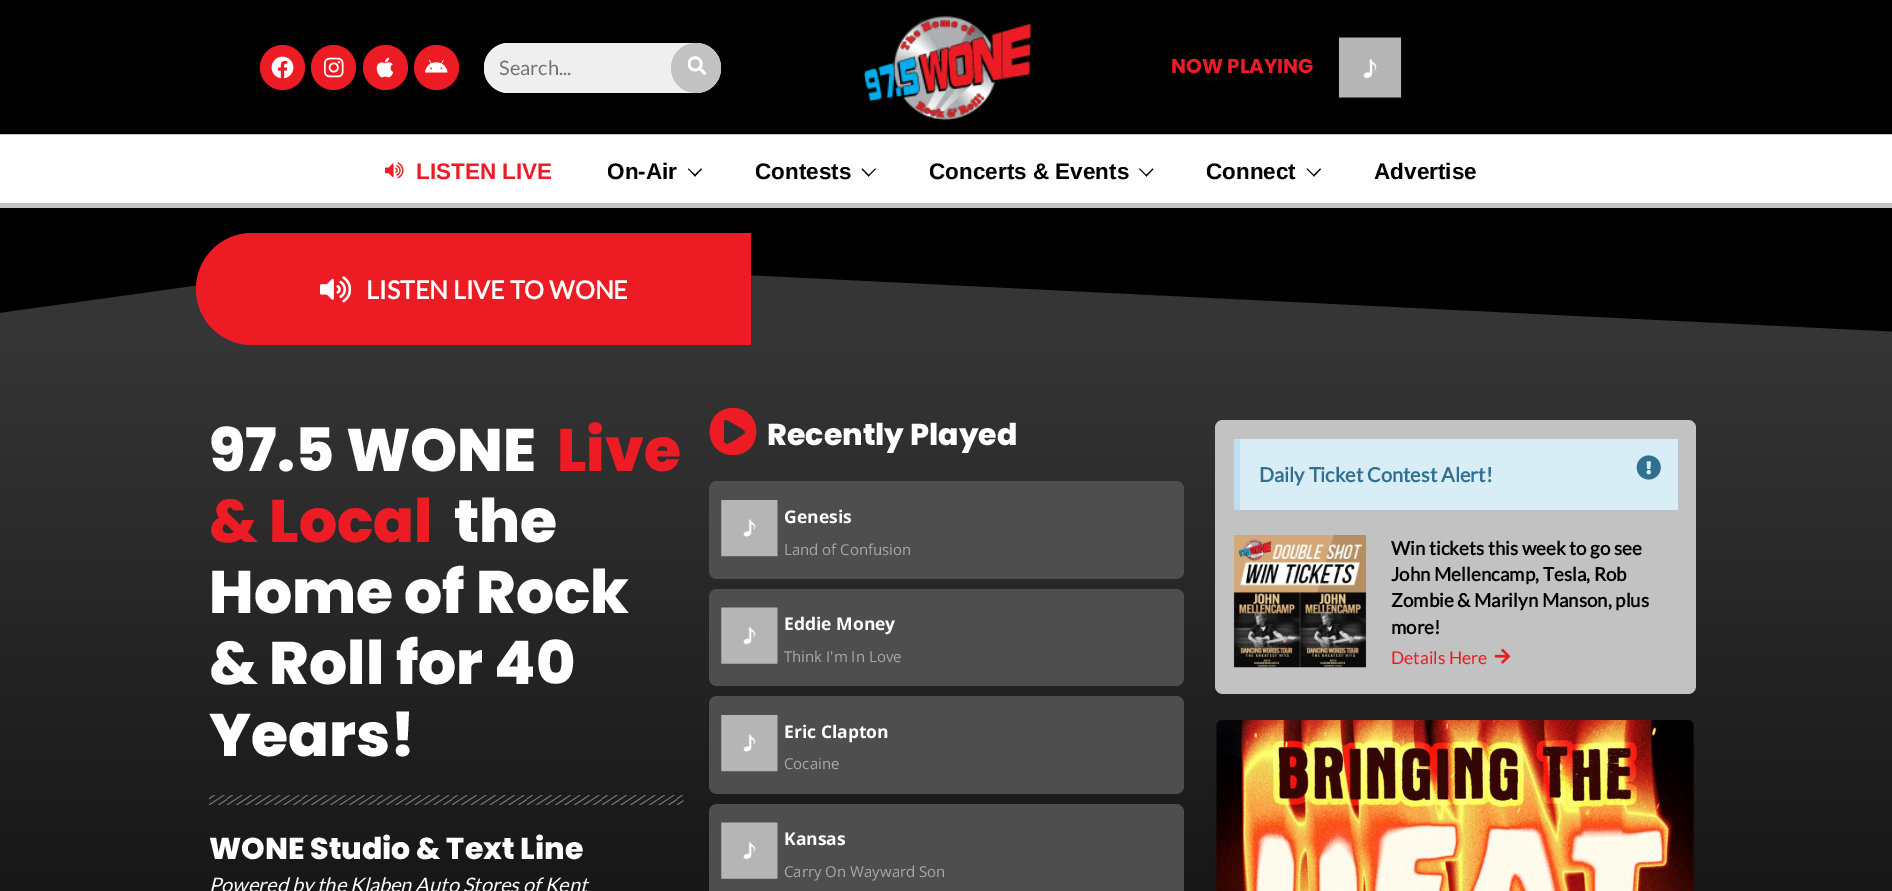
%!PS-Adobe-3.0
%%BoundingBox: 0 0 1892 891
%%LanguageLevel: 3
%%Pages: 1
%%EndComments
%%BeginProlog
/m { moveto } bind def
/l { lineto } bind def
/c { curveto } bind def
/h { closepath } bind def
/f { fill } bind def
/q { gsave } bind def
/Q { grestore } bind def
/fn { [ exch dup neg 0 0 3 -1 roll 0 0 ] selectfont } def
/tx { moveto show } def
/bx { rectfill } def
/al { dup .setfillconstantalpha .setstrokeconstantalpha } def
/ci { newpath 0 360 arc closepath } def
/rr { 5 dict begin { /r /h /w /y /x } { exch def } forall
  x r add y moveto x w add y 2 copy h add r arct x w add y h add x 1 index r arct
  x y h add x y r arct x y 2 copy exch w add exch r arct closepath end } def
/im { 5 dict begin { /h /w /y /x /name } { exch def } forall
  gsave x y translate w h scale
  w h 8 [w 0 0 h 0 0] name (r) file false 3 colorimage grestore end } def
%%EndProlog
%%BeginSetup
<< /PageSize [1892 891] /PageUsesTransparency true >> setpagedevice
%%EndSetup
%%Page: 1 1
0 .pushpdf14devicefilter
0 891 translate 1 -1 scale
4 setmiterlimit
0 setgray
0 0 1892 891 bx
0.929 0.11 0.141 setrgbcolor
282.5 67.5 22.5 ci f
(image0.raw) 271 56 23 23 im
333.5 67.5 22.5 ci f
(image1.raw) 323 57 21 21 im
385.5 67.5 22.5 ci f
(image2.raw) 376 57 18 21 im
436.5 67.5 22.5 ci f
(image3.raw) 425 59 23 14 im
0.937 setgray
484 43 237 50 25 rr f
509 43 m 668.5 43 l 670 43 671 44 671 45.5 c 671 90.5 l 671 92 670 93 668.5 93 c 509 93 l 495 93 484 82 484 68 c 484 54 495 43 509 43 c h f
/Lato-Regular 20 fn
0.459 setgray
(Search...) 499 75 tx
0.761 setgray
696 68 25 ci f
(image4.raw) 688 56 18 19 im
(image5.raw) 863 15 169 106 im
/Poppins-Bold 20 fn
0.929 0.11 0.141 setrgbcolor
(NOW PLAYING) 1171 73 tx
(image6.raw) 1338 37 64 61 im
1 setgray
0 135 1892 68 bx
0.761 setgray
0 134 1892 1 bx
0 203 1892 5 bx
(image7.raw) 385 162 19 17 im
/LiberationSans-Bold 22.5 fn
0.929 0.11 0.141 setrgbcolor
(LISTEN LIVE) 416 179 tx
0 setgray
(On-Air) 607 179 tx
702 169 m 695 176.5 l 694 175.5 l 701 168.5 l h f
696 175.5 m 695 176.5 l 688 169 l 688.5 168.5 l h f
(Contests) 755 179 tx
876 169 m 868.5 176.5 l 868 175.5 l 875 168.5 l h f
869.5 175.5 m 868.5 176.5 l 861.5 169 l 862.5 168.5 l h f
(Concerts & Events) 929 179 tx
1153.5 169 m 1146.5 176.5 l 1145.5 175.5 l 1152.5 168.5 l h f
1147 175.5 m 1146.5 176.5 l 1139 169 l 1140 168.5 l h f
(Connect) 1206 179 tx
1321 169 m 1314 176.5 l 1313 175.5 l 1320 168.5 l h f
1314.5 175.5 m 1314 176.5 l 1306.5 169 l 1307.5 168.5 l h f
(Advertise) 1374 179 tx
0.208 setgray
396 258 m -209 342 l -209 347 l 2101 347 l 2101 342 l h f
0.929 0.11 0.141 setrgbcolor
252 233 m 751 233 l 751 345 l 252 345 l 221 345 196 320 196 289 c 196 258 221 233 252 233 c h f
(image8.raw) 320 276 31 27 im
/Lato-Bold 25 fn
1 setgray
(LISTEN LIVE TO WONE) 366 299 tx
q 0 347 m 1892 347 l 1892 891 l 0 891 l h clip newpath
<< /ShadingType 2 /ColorSpace /DeviceRGB /Coords [946 345 946 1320] /Extend [true true] /Function << /FunctionType 2 /Domain [0 1] /C0 [0.208 0.208 0.208] /C1 [0 0 0] /N 1 >> >> shfill Q
/Poppins-ExtraBold 60 fn
(97.5 WONE) 209 471 tx
0.929 0.11 0.141 setrgbcolor
(Live) 557 471 tx
(& Local) 209 542 tx
1 setgray
(the) 454 542 tx
(Home of Rock) 209 613 tx
(& Roll for 40) 209 684 tx
(Years!) 209 756 tx
(image9.raw) 209 795 475 10 im
/Poppins-ExtraBold 30 fn
(WONE Studio & Text Line) 209 859 tx
/Lato-Italic 20 fn
(Powered by the Klaben Auto Stores of Kent) 209 892 tx
0.929 0.11 0.141 setrgbcolor
733 408 m 702 408 702 455 733 455 c 764 455 764 408 733 408 c h 744 434 m 742 436 728 445 726 444 c 724 442 l 724 421 l 725 420 l 727 420 l 736 425 l 737 426 749 431 744 434 c h f
/Poppins-ExtraBold 30 fn
1 setgray
(Recently Played) 767 445 tx
0.306 setgray
709 481 475 98 8 rr f
(image10.raw) 721 500 57 57 im
/OpenSans-Bold 17.5 fn
1 setgray
(Genesis) 784 523 tx
/OpenSans-Regular 15 fn
0.655 setgray
(Land of Confusion) 784 555 tx
0.306 setgray
709 589 475 97 8 rr f
(image11.raw) 721 607 57 57 im
/OpenSans-Bold 17.5 fn
1 setgray
(Eddie Money) 784 630 tx
/OpenSans-Regular 15 fn
0.655 setgray
(Think I'm In Love) 784 662 tx
0.306 setgray
709 696 475 98 8 rr f
(image10.raw) 721 715 57 57 im
/OpenSans-Bold 17.5 fn
1 setgray
(Eric Clapton) 784 738 tx
/OpenSans-Regular 15 fn
0.655 setgray
(Cocaine) 784 769 tx
0.306 setgray
709 804 475 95 8 rr f
(image11.raw) 721 822 57 57 im
/OpenSans-Bold 17.5 fn
1 setgray
(Kansas) 784 845 tx
/OpenSans-Regular 15 fn
0.655 setgray
(Carry On Wayward Son) 784 877 tx
0.761 setgray
1215 420 481 274 8 rr f
0.851 0.929 0.969 setrgbcolor
1240 439 438 71 bx
0.737 0.875 0.945 setrgbcolor
1234 439 6 71 bx
/Lato-Bold 20 fn
0.192 0.439 0.561 setrgbcolor
(Daily Ticket Contest Alert!) 1259 482 tx
(image12.raw) 1636 455 25 25 im
(image13.raw) 1233 535 134 133 im
/Lato-Bold 18.75 fn
0 setgray
(Win tickets this week to go see) 1391 555 tx
(John Mellencamp, Tesla, Rob) 1391 581 tx
(Zombie & Marilyn Manson, plus) 1391 607 tx
(more!) 1391 634 tx
/Lato-Regular 17.5 fn
0.929 0.11 0.141 setrgbcolor
(Details Here) 1391 664 tx
(image14.raw) 1494 648 17 16 im
0.1 al
0 setgray
1215 729 m 1215 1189 l 1216 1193 l 1216 725 l h 1225 719 m 1221 720 l 1689 720 l 1685 719 l h 1695 729 m 1694 725 l 1694 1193 l 1695 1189 l h 1685 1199 m 1689 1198 l 1221 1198 l 1225 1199 l h eofill
1 al
(image15.raw) 1216 720 478 171 im
.poppdf14devicefilter showpage
%%EOF
